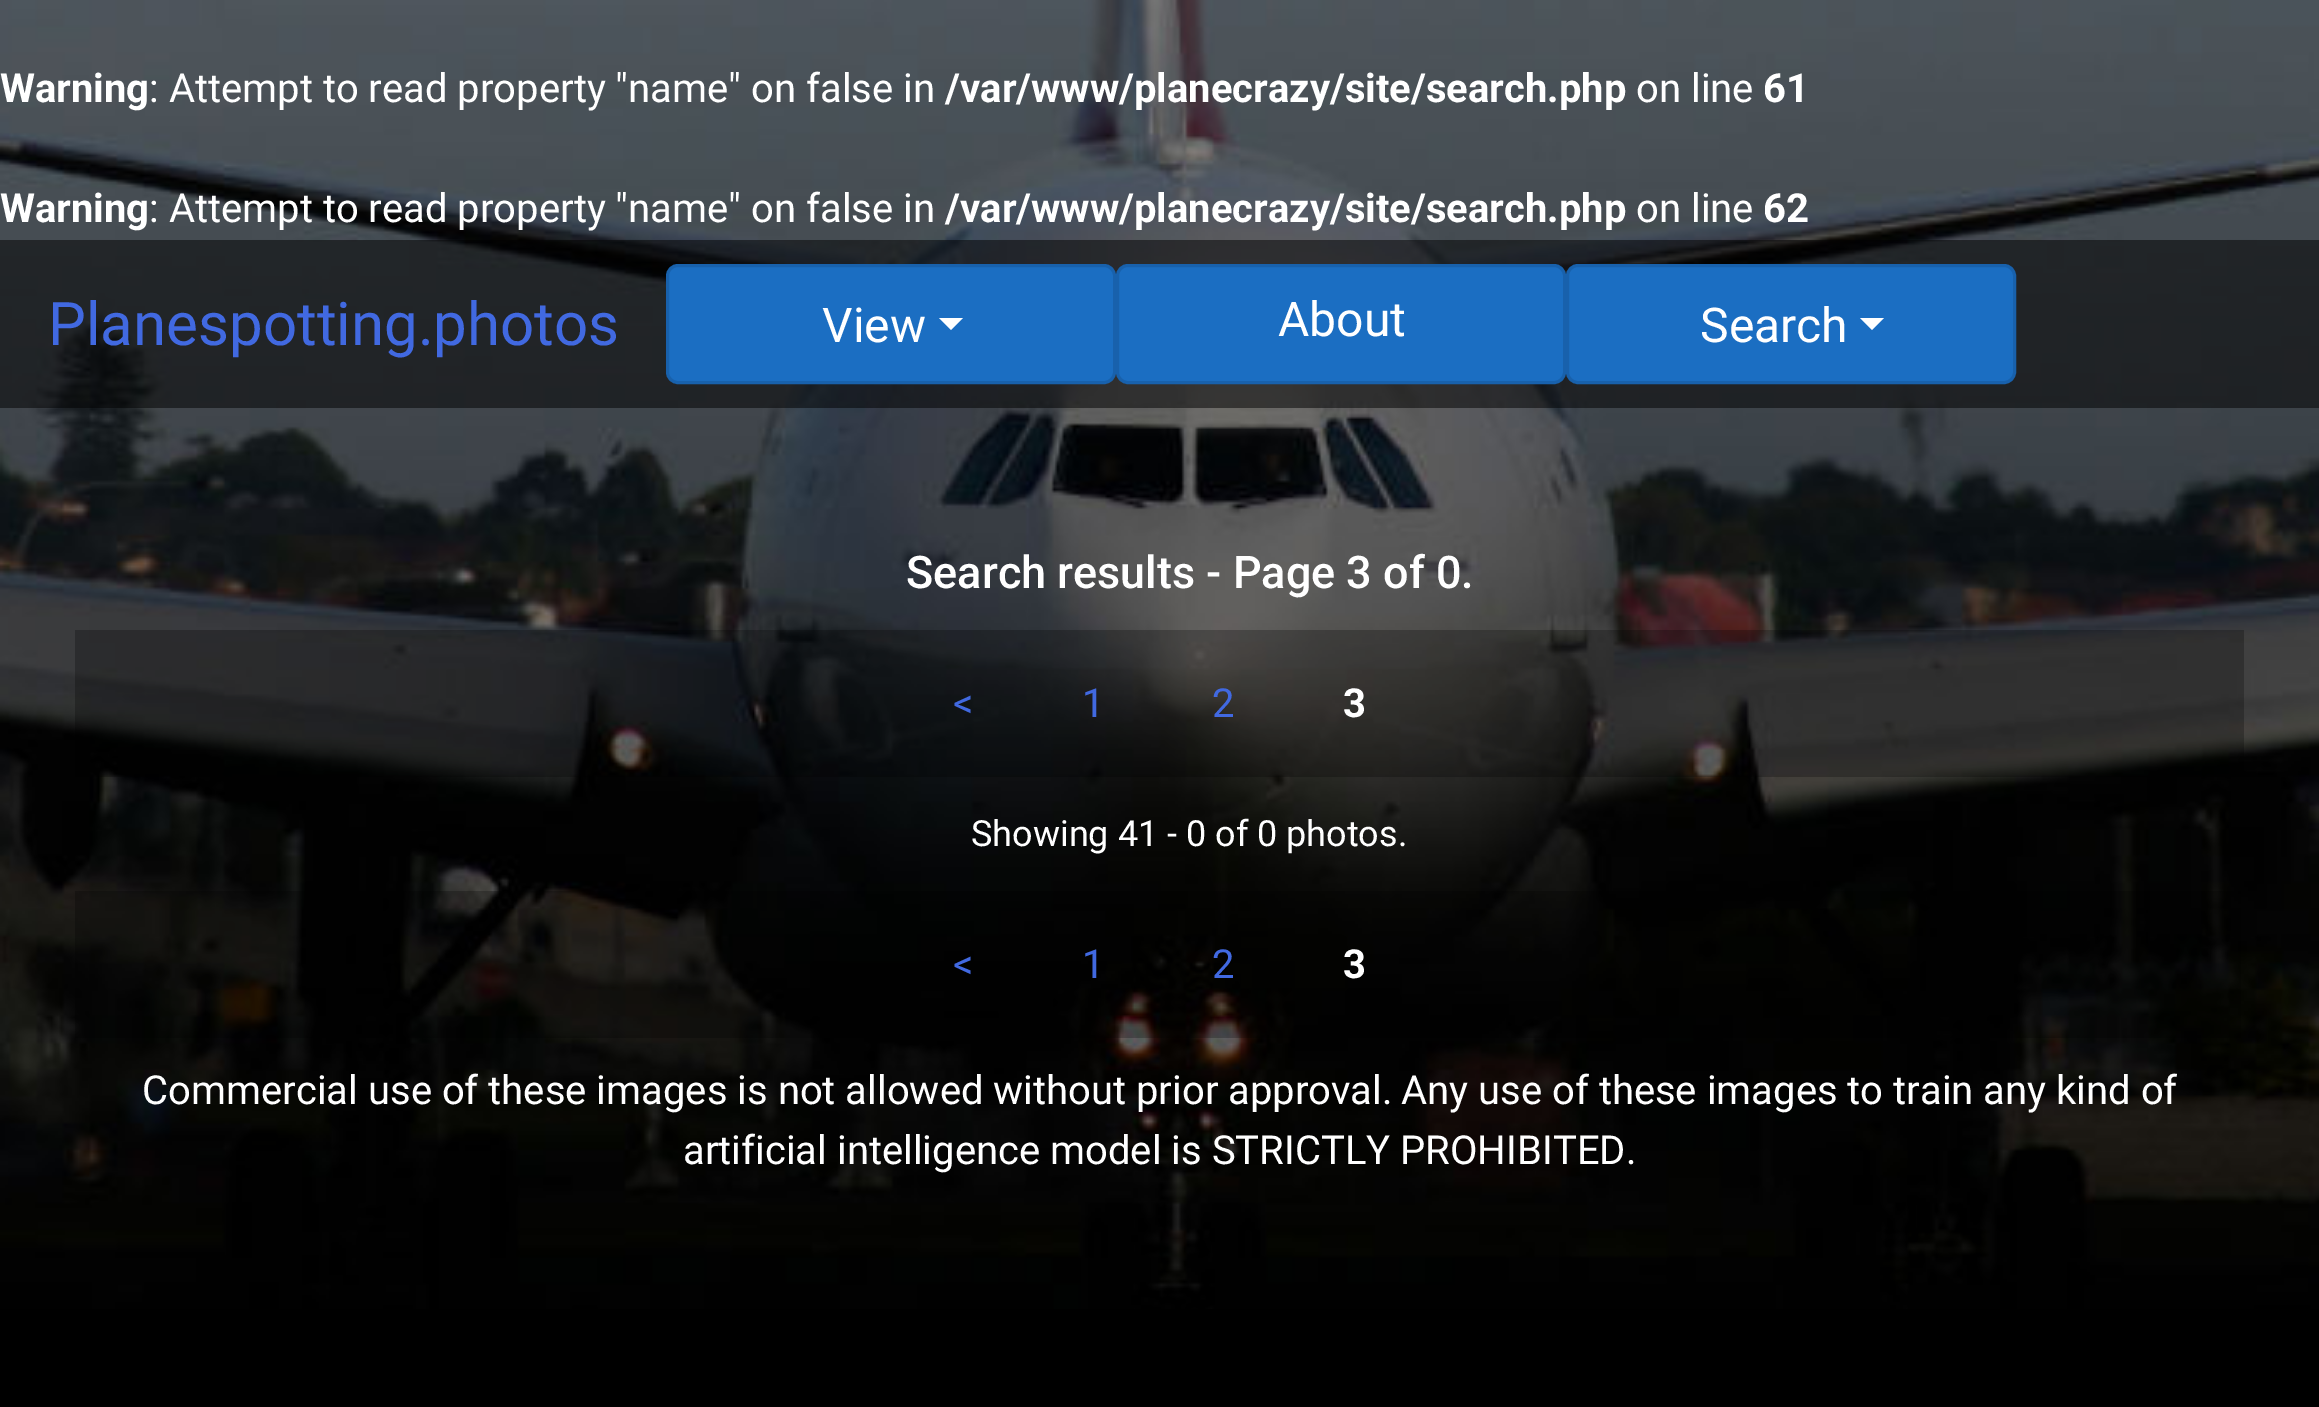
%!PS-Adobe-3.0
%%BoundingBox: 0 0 2319 1407
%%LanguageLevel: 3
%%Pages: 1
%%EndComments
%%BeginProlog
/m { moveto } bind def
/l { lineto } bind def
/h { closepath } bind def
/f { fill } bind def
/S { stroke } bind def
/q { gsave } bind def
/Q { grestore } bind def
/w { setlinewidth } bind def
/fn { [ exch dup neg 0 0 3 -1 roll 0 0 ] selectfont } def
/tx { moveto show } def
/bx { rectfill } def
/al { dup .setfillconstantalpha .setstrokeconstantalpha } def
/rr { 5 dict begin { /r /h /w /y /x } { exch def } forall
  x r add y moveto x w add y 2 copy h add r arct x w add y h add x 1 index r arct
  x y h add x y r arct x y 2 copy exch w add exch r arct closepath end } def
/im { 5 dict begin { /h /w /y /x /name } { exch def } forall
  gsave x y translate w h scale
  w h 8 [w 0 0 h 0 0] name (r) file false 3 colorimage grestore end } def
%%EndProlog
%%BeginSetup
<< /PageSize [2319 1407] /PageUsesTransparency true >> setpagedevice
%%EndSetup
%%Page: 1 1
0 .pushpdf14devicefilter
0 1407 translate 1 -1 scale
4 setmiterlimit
0 setgray
0 0 2319 1407 bx
(image0.raw) 0 0 2319 1309 im
/Roboto-Bold 40 fn
1 setgray
(Warning) 0 102 tx
/Roboto-Regular 40 fn
(: Attempt to read property "name" on false in) 149 102 tx
/Roboto-Bold 40 fn
(/var/www/planecrazy/site/search.php) 945 102 tx
/Roboto-Regular 40 fn
(on line) 1636 102 tx
/Roboto-Bold 40 fn
(61) 1763 102 tx
(Warning) 0 222 tx
/Roboto-Regular 40 fn
(: Attempt to read property "name" on false in) 149 222 tx
/Roboto-Bold 40 fn
(/var/www/planecrazy/site/search.php) 945 222 tx
/Roboto-Regular 40 fn
(on line) 1636 222 tx
/Roboto-Bold 40 fn
(62) 1763 222 tx
0.5 al
0 setgray
0 240 2319 168 bx
/Roboto-Regular 60 fn
1 al
0.255 0.412 0.882 setrgbcolor
(Planespotting.photos) 48 345 tx
0.106 0.431 0.761 setrgbcolor
667.5 265.5 447 117 10.5 rr q f Q
0.094 0.38 0.675 setrgbcolor
3 w
S
/Roboto-Regular 48 fn
1 setgray
(View) 822 342 tx
939 318 m 963 318 l 951 330 l h f
0.106 0.431 0.761 setrgbcolor
1117.5 265.5 447 117 10.5 rr q f Q
0.094 0.38 0.675 setrgbcolor
S
1 setgray
(About) 1278 336 tx
0.106 0.431 0.761 setrgbcolor
1567.5 265.5 447 117 10.5 rr q f Q
0.094 0.38 0.675 setrgbcolor
S
1 setgray
(Search) 1700 342 tx
1860 318 m 1884 318 l 1872 330 l h f
/Roboto-Medium 45 fn
(Search results - Page 3 of 0.) 906 588 tx
0.25 al
0 setgray
75 630 2169 147 bx
/Roboto-Regular 40 fn
1 al
0.255 0.412 0.882 setrgbcolor
(<) 953 717 tx
(1) 1082 717 tx
(2) 1212 717 tx
/Roboto-Bold 40 fn
1 setgray
(3) 1343 717 tx
/Roboto-Regular 36 fn
(Showing 41 - 0 of 0 photos.) 971 846 tx
0.25 al
0 setgray
75 891 2166 147 bx
/Roboto-Regular 40 fn
1 al
0.255 0.412 0.882 setrgbcolor
(<) 953 978 tx
(1) 1082 978 tx
(2) 1212 978 tx
/Roboto-Bold 40 fn
1 setgray
(3) 1343 978 tx
/Roboto-Regular 40 fn
(Commercial use of these images is not allowed without prior approval.) 142 1104 tx
(Any use of these images to train any kind of) 1401 1104 tx
(artificial intelligence model is STRICTLY PROHIBITED.) 683 1164 tx
.poppdf14devicefilter showpage
%%EOF
